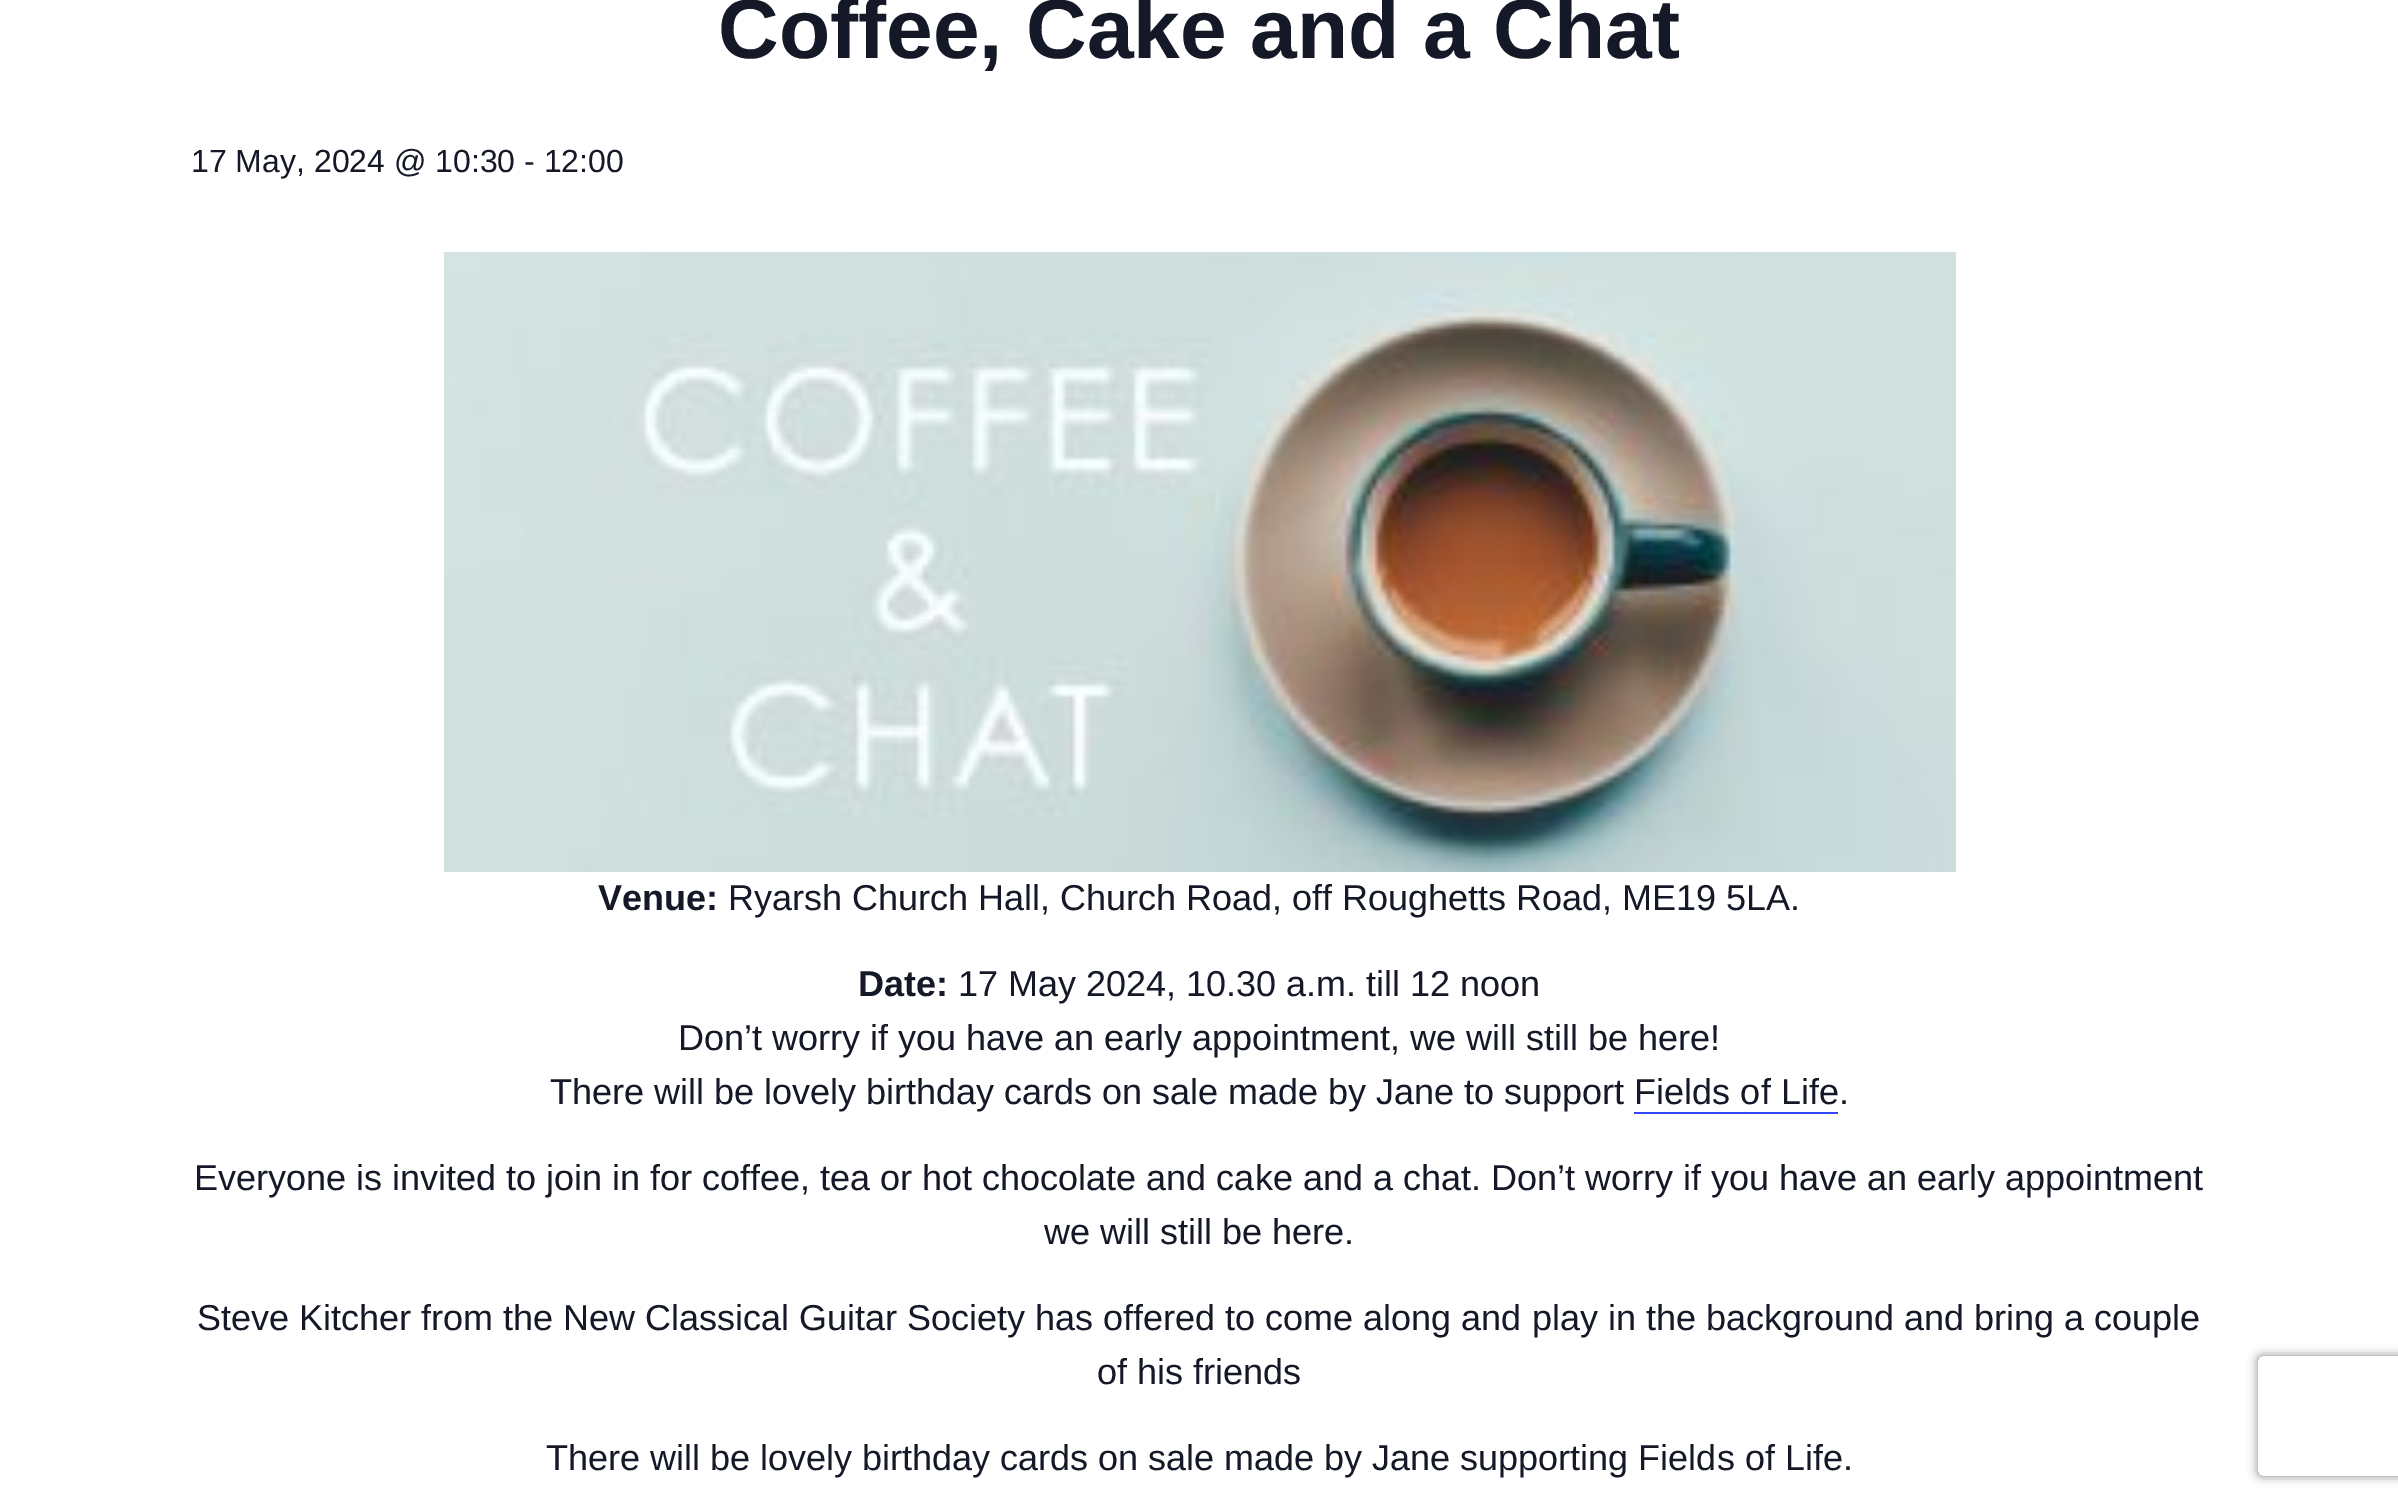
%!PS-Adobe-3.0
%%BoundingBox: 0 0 2398 1503
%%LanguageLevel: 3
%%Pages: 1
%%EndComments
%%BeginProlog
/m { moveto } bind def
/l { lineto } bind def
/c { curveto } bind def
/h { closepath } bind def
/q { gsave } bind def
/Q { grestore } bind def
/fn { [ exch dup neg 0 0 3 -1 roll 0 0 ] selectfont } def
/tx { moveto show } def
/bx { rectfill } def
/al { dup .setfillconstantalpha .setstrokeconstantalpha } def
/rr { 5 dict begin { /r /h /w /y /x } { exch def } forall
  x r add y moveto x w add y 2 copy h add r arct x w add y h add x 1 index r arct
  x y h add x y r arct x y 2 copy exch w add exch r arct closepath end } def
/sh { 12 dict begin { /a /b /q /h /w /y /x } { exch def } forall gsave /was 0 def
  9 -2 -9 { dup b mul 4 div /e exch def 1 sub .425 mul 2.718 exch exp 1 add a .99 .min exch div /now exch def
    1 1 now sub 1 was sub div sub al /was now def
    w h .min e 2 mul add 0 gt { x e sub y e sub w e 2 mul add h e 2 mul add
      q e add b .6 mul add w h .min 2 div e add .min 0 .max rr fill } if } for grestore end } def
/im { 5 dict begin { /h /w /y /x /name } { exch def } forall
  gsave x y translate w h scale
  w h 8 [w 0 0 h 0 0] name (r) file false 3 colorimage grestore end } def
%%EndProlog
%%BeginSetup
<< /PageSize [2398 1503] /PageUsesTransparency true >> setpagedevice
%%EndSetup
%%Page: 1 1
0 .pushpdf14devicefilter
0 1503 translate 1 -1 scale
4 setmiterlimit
1 setgray
0 0 2398 1503 bx
/LiberationSans-Bold 84 fn
0.078 0.094 0.153 setrgbcolor
(Coffee, Cake and a Chat) 718 58 tx
/LiberationSans-Regular 32 fn
(17 May, 2024 @ 10:30 - 12:00) 191 172 tx
(image0.raw) 444 252 1512 620 im
/LiberationSans-Bold 36 fn
(Venue:) 598 910 tx
/LiberationSans-Regular 36 fn
(Ryarsh Church Hall, Church Road, off Roughetts Road, ME19 5LA.) 728 910 tx
/LiberationSans-Bold 36 fn
(Date:) 858 996 tx
/LiberationSans-Regular 36 fn
(17 May 2024, 10.30 a.m. till 12 noon) 958 996 tx
(Don’t worry if you have an early appointment, we will still be here!) 678 1050 tx
(There will be lovely birthday cards on sale made by Jane to support Fields of Life.) 550 1104 tx
0.2 0.29 1 setrgbcolor
1634 1112 204 2 bx
0.078 0.094 0.153 setrgbcolor
(Everyone is invited to join in for coffee, tea or hot chocolate and cake and a chat. Don’t worry if you have an early appointment) 194 1190 tx
(we will still be here.) 1044 1244 tx
(Steve Kitcher from the New Classical Guitar Society has offered to come along and play in the background and bring a couple) 197 1330 tx
(of his friends) 1097 1384 tx
(There will be lovely birthday cards on sale made by Jane supporting Fields of Life.) 546 1470 tx
q
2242 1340 m 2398 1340 l 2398 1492 l 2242 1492 l h 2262 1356 m 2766 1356 l 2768 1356 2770 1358 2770 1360 c 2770 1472 l 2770 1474 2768 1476 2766 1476 c 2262 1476 l 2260 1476 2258 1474 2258 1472 c 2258 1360 l 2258 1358 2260 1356 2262 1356 c h eoclip newpath
0.502 setgray
2258 1356 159 120 4 5 1 sh
Q
.poppdf14devicefilter showpage
%%EOF
